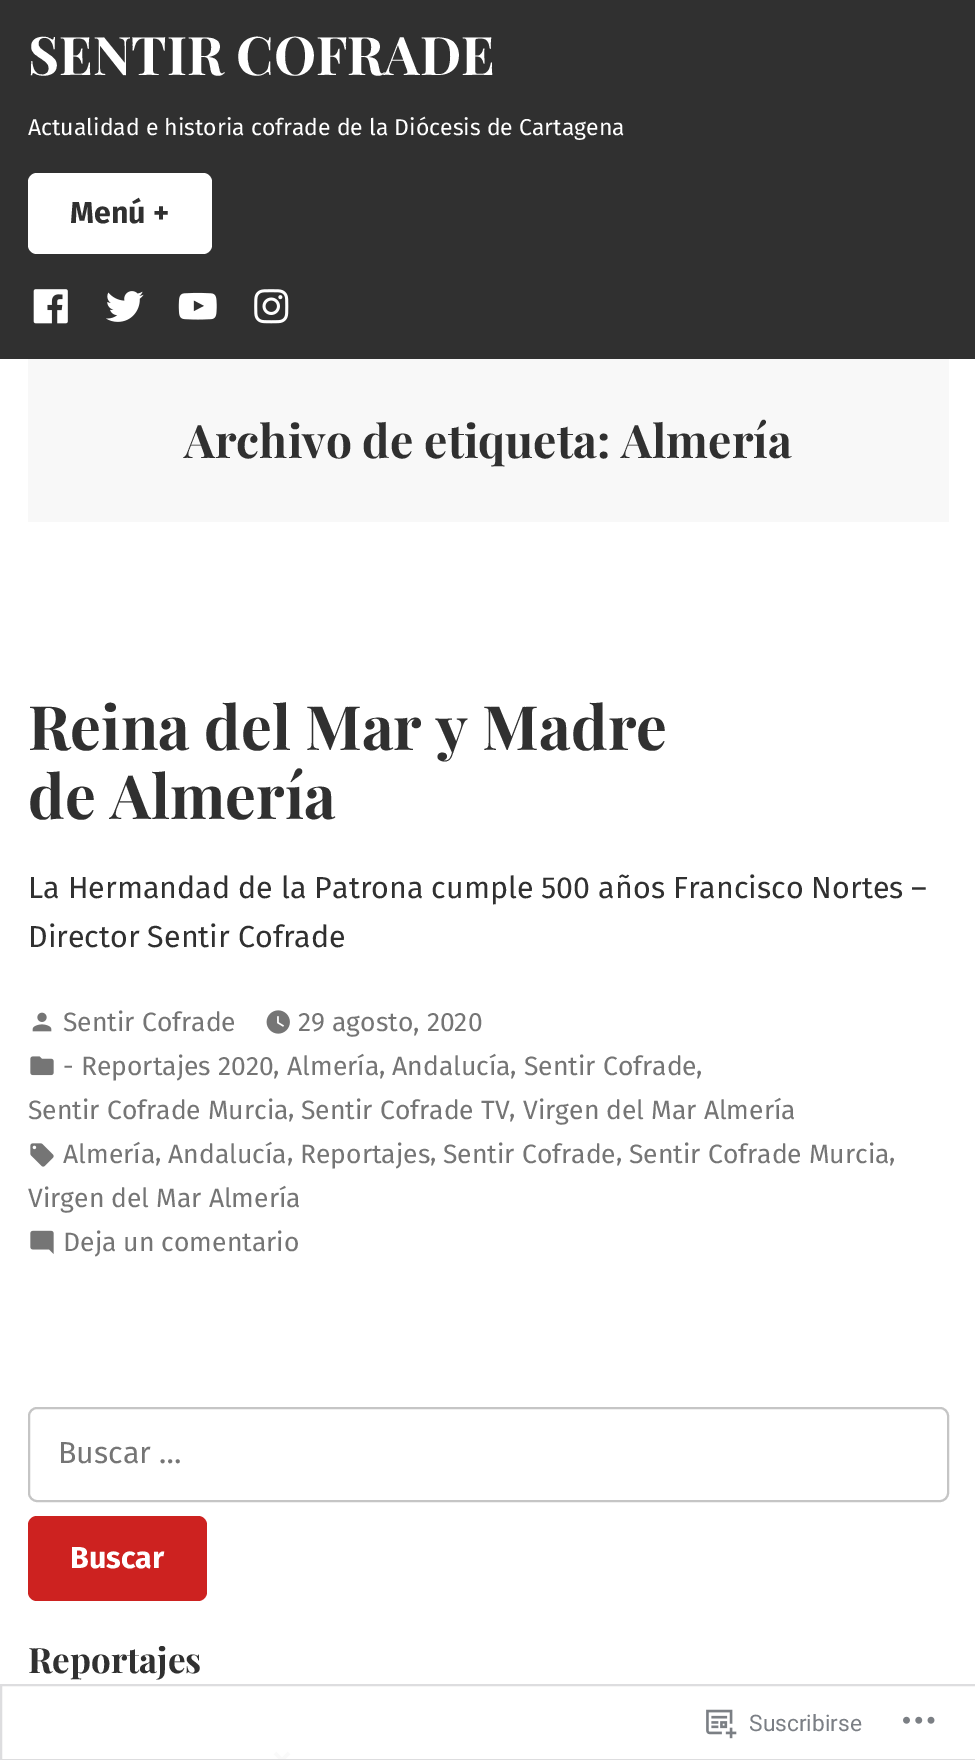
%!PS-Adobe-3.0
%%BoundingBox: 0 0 975 1760
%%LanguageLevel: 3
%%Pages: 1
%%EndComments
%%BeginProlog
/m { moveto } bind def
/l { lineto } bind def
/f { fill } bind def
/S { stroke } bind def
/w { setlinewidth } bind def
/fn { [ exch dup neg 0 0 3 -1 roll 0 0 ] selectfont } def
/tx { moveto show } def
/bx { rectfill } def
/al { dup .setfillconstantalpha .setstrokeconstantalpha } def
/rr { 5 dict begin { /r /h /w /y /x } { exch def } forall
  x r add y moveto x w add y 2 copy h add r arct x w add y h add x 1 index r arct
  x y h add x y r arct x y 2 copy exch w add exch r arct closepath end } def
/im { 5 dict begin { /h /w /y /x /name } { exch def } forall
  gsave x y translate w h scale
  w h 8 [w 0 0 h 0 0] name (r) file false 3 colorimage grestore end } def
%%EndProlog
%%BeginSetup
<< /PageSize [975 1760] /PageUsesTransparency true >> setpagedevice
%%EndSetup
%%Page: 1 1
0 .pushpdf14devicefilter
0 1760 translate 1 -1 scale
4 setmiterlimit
1 setgray
0 0 975 1760 bx
0.188 setgray
0 0 975 359 bx
/PlayfairDisplay-Bold 53.25 fn
1 setgray
(SENTIR COFRADE) 28 75 tx
/FiraSans-Regular 23 fn
(Actualidad e historia cofrade de la Diócesis de Cartagena) 28 135 tx
28 173 184 81 9 rr f
/FiraSans-Bold 30.4 fn
0.188 setgray
(Menú +) 70 223 tx
(image0.raw) 33 289 35 35 im
(image1.raw) 106 291 38 31 im
(image2.raw) 178 292 39 28 im
(image3.raw) 254 289 35 35 im
0.973 setgray
28 359 921 163 bx
/PlayfairDisplay-Bold 46.25 fn
0.188 setgray
(Archivo de etiqueta: Almería) 184 458 tx
/PlayfairDisplay-Bold 61.25 fn
(Reina del Mar y Madre) 28 750 tx
(de Almería) 28 819 tx
/FiraSans-Regular 30.4 fn
(La Hermandad de la Patrona cumple 500 años Francisco Nortes –) 28 898 tx
(Director Sentir Cofrade) 28 947 tx
(image4.raw) 32 1012 20 20 im
/FiraSans-Regular 26.5 fn
0.459 setgray
(Sentir Cofrade) 63 1031 tx
(image5.raw) 266 1010 24 24 im
(29 agosto, 2020) 298 1031 tx
(image6.raw) 30 1056 24 20 im
(- Reportajes 2020) 63 1075 tx
(,) 273 1074 tx
(Almería) 287 1075 tx
(,) 379 1074 tx
(Andalucía) 392 1075 tx
(,) 510 1074 tx
(Sentir Cofrade) 524 1075 tx
(,) 696 1074 tx
(Sentir Cofrade Murcia) 28 1119 tx
(,) 288 1117 tx
(Sentir Cofrade TV) 301 1119 tx
(,) 509 1117 tx
(Virgen del Mar Almería) 523 1119 tx
(image7.raw) 30 1143 24 24 im
(Almería) 63 1163 tx
(,) 155 1161 tx
(Andalucía) 168 1163 tx
(,) 287 1161 tx
(Reportajes) 300 1163 tx
(,) 430 1161 tx
(Sentir Cofrade) 443 1163 tx
(,) 616 1161 tx
(Sentir Cofrade Murcia) 629 1163 tx
(,) 889 1161 tx
(Virgen del Mar Almería) 28 1207 tx
(image8.raw) 30 1230 24 24 im
(Deja un comentario) 63 1251 tx
0.773 setgray
2 w
29 1408 919 93 8 rr S
/FiraSans-Regular 30.4 fn
0.459 setgray
(Buscar …) 58 1463 tx
0.804 0.133 0.125 setrgbcolor
28 1516 179 85 9 rr f
/FiraSans-Bold 30.4 fn
1 setgray
(Buscar) 70 1568 tx
/PlayfairDisplay-Bold 35 fn
0.188 setgray
(Reportajes) 28 1673 tx
0.98 setgray
3.5 w
275 1753 m 282 1760 l 289 1753 l S
0.98 al
0.863 0.863 0.871 setrgbcolor
2 w
1 1685 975 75 rectstroke
1 al
(image9.raw) 706 1709 31 30 im
/Roboto-Regular 22.75 fn
0.482 0.498 0.522 setrgbcolor
(Suscribirse) 749 1731 tx
(image10.raw) 903 1716 32 8 im
.poppdf14devicefilter showpage
%%EOF
